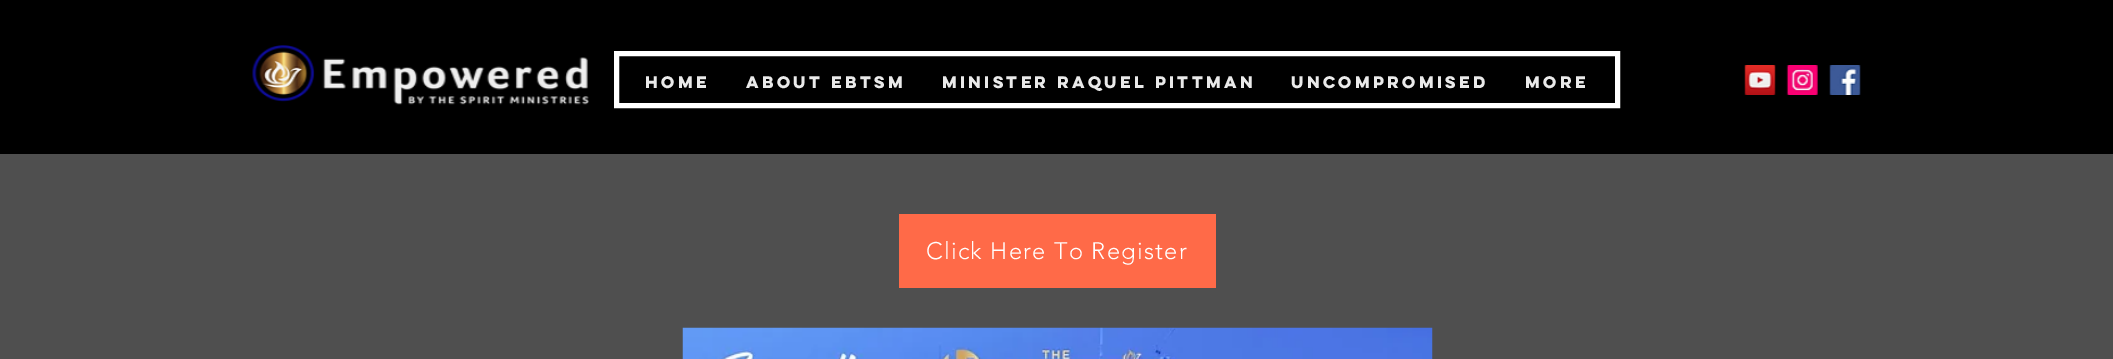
%!PS-Adobe-3.0
%%BoundingBox: 0 0 2113 359
%%LanguageLevel: 3
%%Pages: 1
%%EndComments
%%BeginProlog
/m { moveto } bind def
/w { setlinewidth } bind def
/fn { [ exch dup neg 0 0 3 -1 roll 0 0 ] selectfont } def
/tx { moveto show } def
/bx { rectfill } def
/im { 5 dict begin { /h /w /y /x /name } { exch def } forall
  gsave x y translate w h scale
  w h 8 [w 0 0 h 0 0] name (r) file false 3 colorimage grestore end } def
%%EndProlog
%%BeginSetup
<< /PageSize [2113 359] >> setpagedevice
%%EndSetup
%%Page: 1 1
0 359 translate 1 -1 scale
4 setmiterlimit
0.31 setgray
0 0 2113 359 bx
0 setgray
0 0 2113 154 bx
(image0.raw) 252 45 337 60 im
1 setgray
5 w
616.5 53.5 1001 52 rectstroke
(image1.raw) 1744 65 32 30 im
(image2.raw) 1786 65 32 30 im
(image3.raw) 1829 65 32 30 im
/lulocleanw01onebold-Bold 15 fn
0.918 setgray
(Home) 645 88 tx
(About EBTSM) 746 88 tx
(Minister Raquel Pittman) 942 88 tx
(Uncompromised) 1291 88 tx
(More) 1525 88 tx
1 0.416 0.282 setrgbcolor
899 214 317 74 bx
/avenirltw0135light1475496-Light 23.75 fn
1 setgray
926 259 m 1.2 0 (Click Here To Register) ashow
(image4.raw) 682 327 751 32 im
showpage
%%EOF
